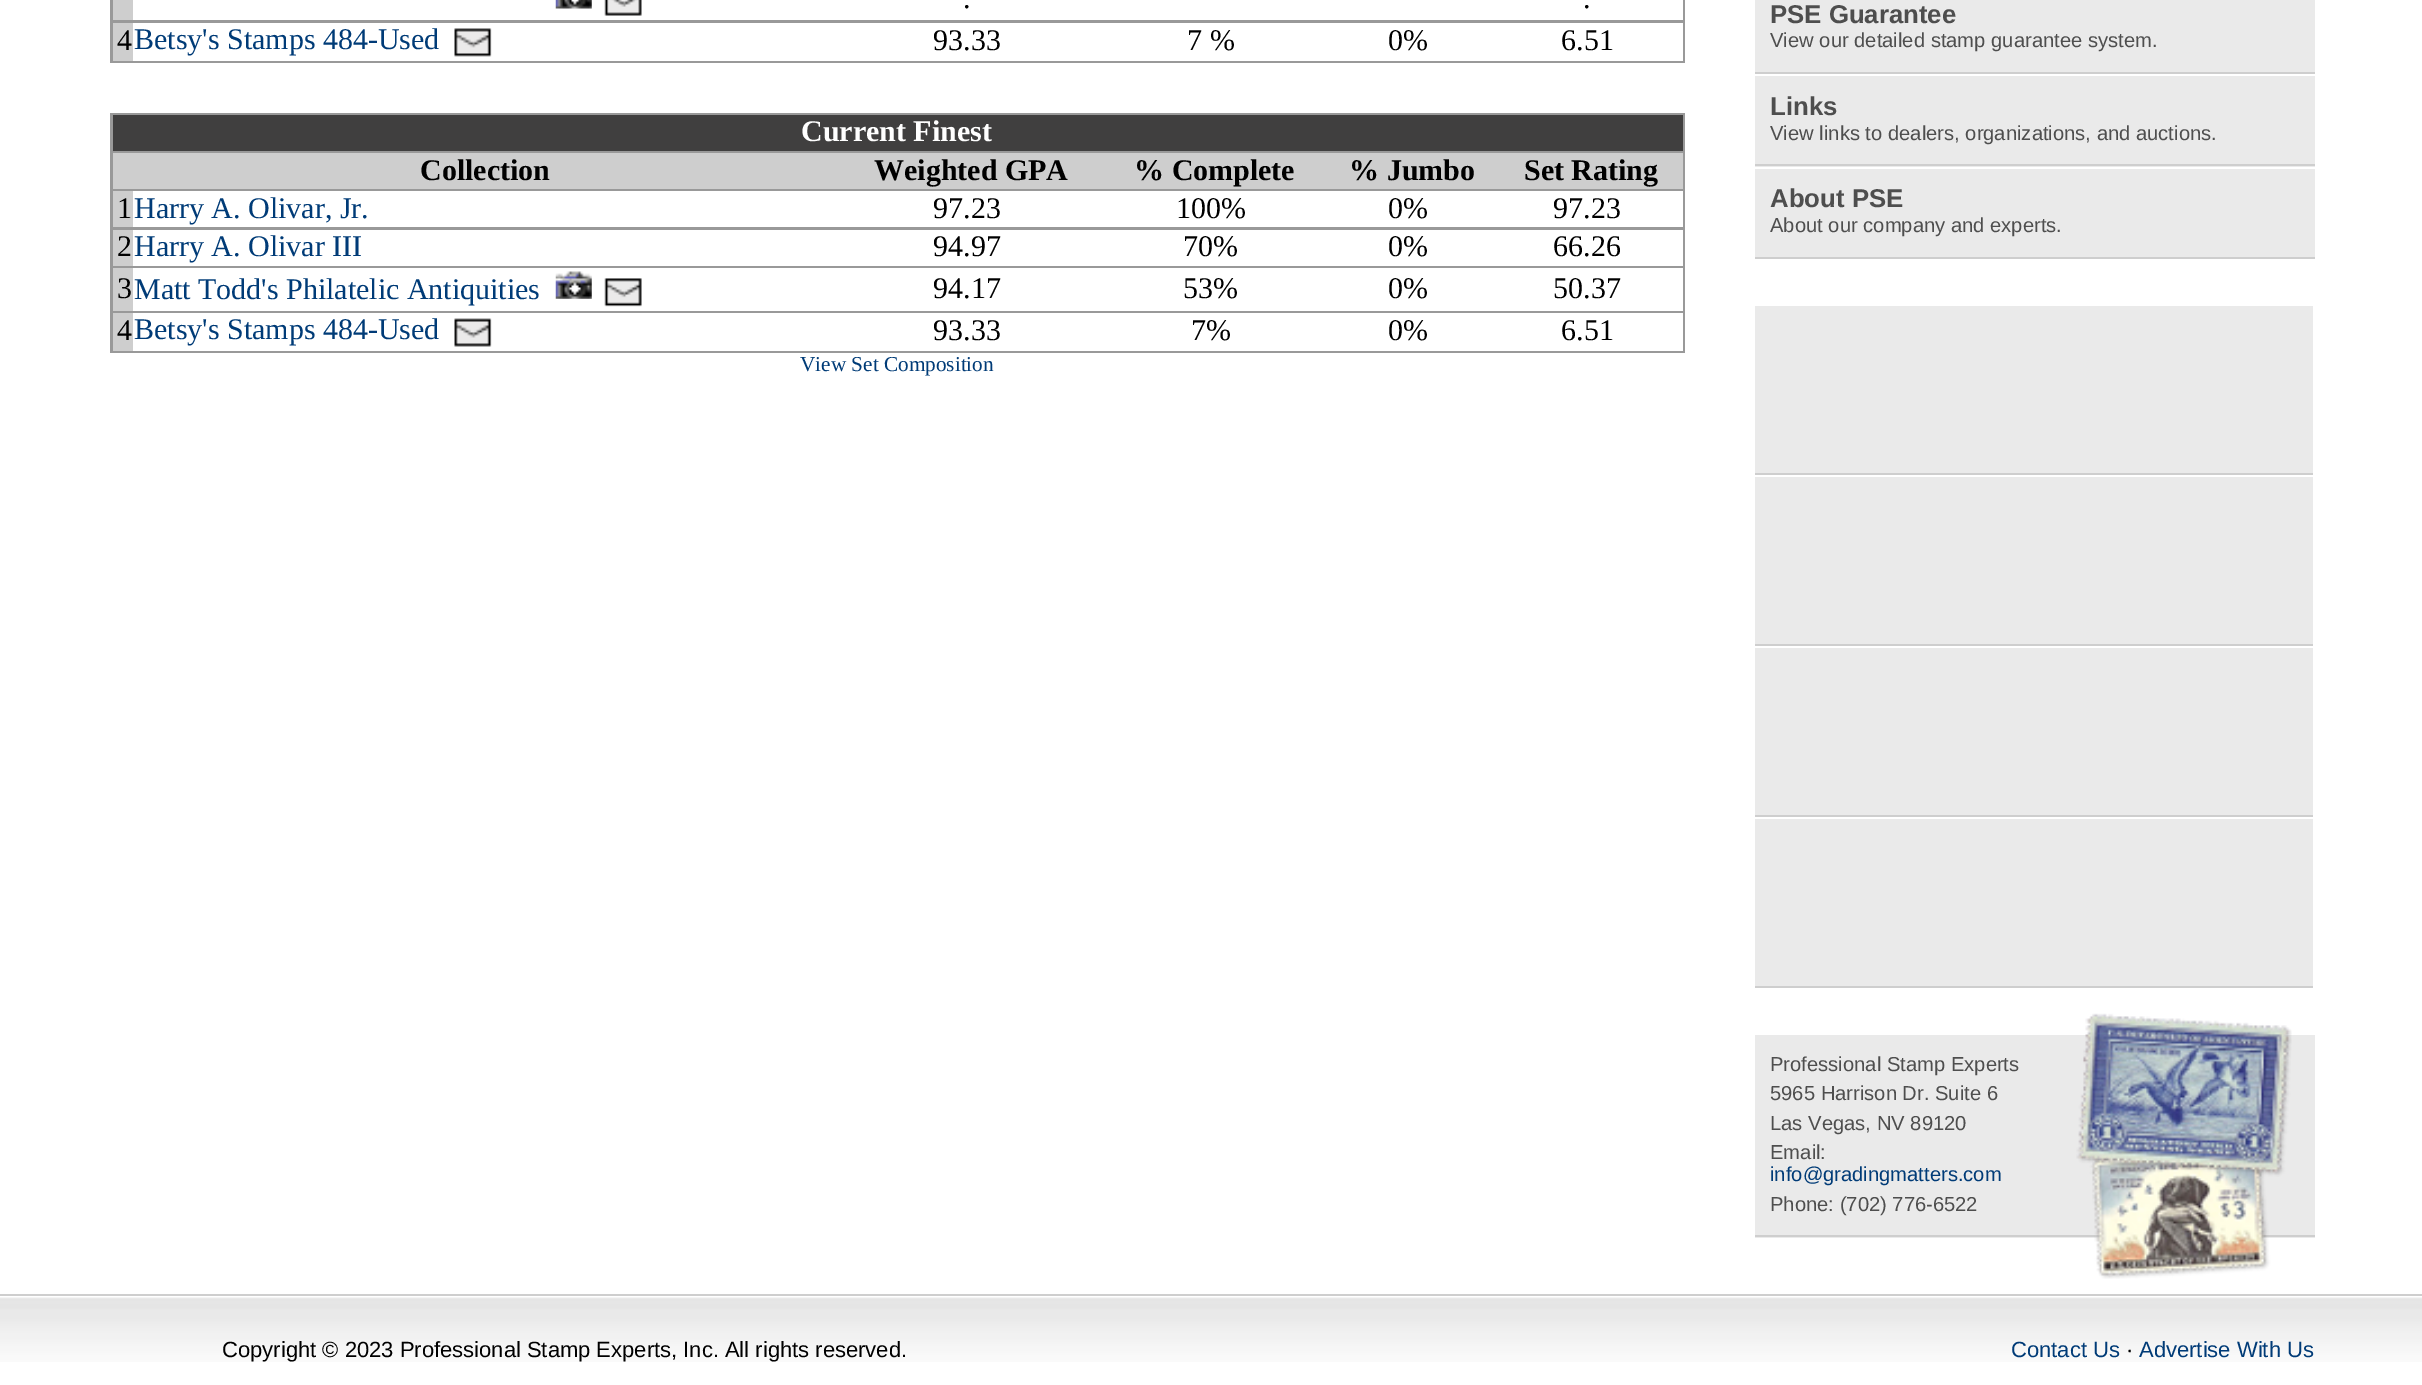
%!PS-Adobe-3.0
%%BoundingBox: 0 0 2422 1385
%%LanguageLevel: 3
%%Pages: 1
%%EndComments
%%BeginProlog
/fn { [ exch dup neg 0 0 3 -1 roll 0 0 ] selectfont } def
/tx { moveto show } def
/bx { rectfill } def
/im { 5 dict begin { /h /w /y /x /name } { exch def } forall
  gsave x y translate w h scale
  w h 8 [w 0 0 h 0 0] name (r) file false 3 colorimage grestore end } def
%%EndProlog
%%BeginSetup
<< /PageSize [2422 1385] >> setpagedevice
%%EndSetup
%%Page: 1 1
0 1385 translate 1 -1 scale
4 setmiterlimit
1 setgray
0 0 2422 1385 bx
0.6 setgray
110 0 1575 63 bx
1 setgray
133 0 1550 20 bx
0.808 setgray
113 0 20 20 bx
(image0.raw) 555 0 37 9 im
(image1.raw) 604 0 38 16 im
/LiberationSerif-Regular 30 fn
0 setgray
(.) 963 8 tx
(.) 1583 8 tx
1 setgray
133 23 1550 38 bx
0.808 setgray
113 23 20 38 bx
0 setgray
(4) 117 50 tx
0 0.231 0.467 setrgbcolor
(Betsy's Stamps 484-Used) 134 49 tx
(image2.raw) 454 28 38 29 im
0 setgray
(93.33) 933 50 tx
(7 %) 1187 50 tx
(0%) 1388 50 tx
(6.51) 1561 50 tx
0.6 setgray
110 113 1575 240 bx
0.251 0.247 0.247 setrgbcolor
113 115 1570 36 bx
/LiberationSerif-Bold 30 fn
1 setgray
(Current Finest) 801 141 tx
0.808 setgray
113 153 1570 36 bx
0 setgray
(Collection) 420 180 tx
(Weighted GPA) 874 180 tx
(% Complete) 1134 180 tx
(% Jumbo) 1349 180 tx
(Set Rating) 1524 180 tx
1 setgray
133 191 1550 36 bx
0.808 setgray
113 191 20 36 bx
/LiberationSerif-Regular 30 fn
0 setgray
(1) 117 218 tx
0 0.231 0.467 setrgbcolor
(Harry A. Olivar, Jr.) 134 218 tx
0 setgray
(97.23) 933 218 tx
(100%) 1176 218 tx
(0%) 1388 218 tx
(97.23) 1553 218 tx
1 setgray
133 230 1550 36 bx
0.808 setgray
113 230 20 36 bx
0 setgray
(2) 117 256 tx
0 0.231 0.467 setrgbcolor
(Harry A. Olivar III) 134 256 tx
0 setgray
(94.97) 933 256 tx
(70%) 1183 256 tx
(0%) 1388 256 tx
(66.26) 1553 256 tx
1 setgray
133 268 1550 43 bx
0.808 setgray
113 268 20 43 bx
0 setgray
(3) 117 298 tx
0 0.231 0.467 setrgbcolor
(Matt Todd's Philatelic Antiquities) 134 299 tx
(image3.raw) 555 271 37 28 im
(image4.raw) 604 278 38 29 im
0 setgray
(94.17) 933 298 tx
(53%) 1183 298 tx
(0%) 1388 298 tx
(50.37) 1553 298 tx
1 setgray
133 313 1550 38 bx
0.808 setgray
113 313 20 38 bx
0 setgray
(4) 117 340 tx
0 0.231 0.467 setrgbcolor
(Betsy's Stamps 484-Used) 134 339 tx
(image5.raw) 454 318 38 29 im
0 setgray
(93.33) 933 340 tx
(7%) 1191 340 tx
(0%) 1388 340 tx
(6.51) 1561 340 tx
/LiberationSerif-Regular 21.25 fn
0 0.231 0.467 setrgbcolor
(View Set Composition) 800 371 tx
0.918 setgray
1755 0 560 72 bx
0.808 setgray
1755 72 560 2 bx
/LiberationSans-Bold 25.75 fn
0.306 setgray
(PSE Guarantee) 1770 23 tx
/LiberationSans-Regular 20.2 fn
(View our detailed stamp guarantee system.) 1770 47 tx
0.918 setgray
1755 76 560 91 bx
0.808 setgray
1755 164 560 2 bx
/LiberationSans-Bold 25.75 fn
0.306 setgray
(Links) 1770 115 tx
/LiberationSans-Regular 20.2 fn
(View links to dealers, organizations, and auctions.) 1770 140 tx
0.918 setgray
1755 169 560 88 bx
0.808 setgray
1755 257 560 2 bx
/LiberationSans-Bold 25.75 fn
0.306 setgray
(About PSE) 1770 207 tx
/LiberationSans-Regular 20.2 fn
(About our company and experts.) 1770 232 tx
0.918 setgray
1755 306 558 167 bx
0.808 setgray
1755 473 558 2 bx
0.918 setgray
1755 477 558 167 bx
0.808 setgray
1755 644 558 2 bx
0.918 setgray
1755 648 558 167 bx
0.808 setgray
1755 815 558 2 bx
0.918 setgray
1755 819 558 167 bx
0.808 setgray
1755 986 558 2 bx
0.918 setgray
1755 1035 560 203 bx
0.808 setgray
1755 1235 560 2 bx
0.306 setgray
(Professional Stamp Experts) 1770 1071 tx
(image6.raw) 2076 1013 216 266 im
(5965 Harrison Dr. Suite 6) 1770 1100 tx
(Las Vegas, NV 89120) 1770 1130 tx
(Email:) 1770 1159 tx
0 0.231 0.467 setrgbcolor
(info@gradingmatters.com) 1770 1181 tx
0.306 setgray
(Phone: \(702\) 776-6522) 1770 1211 tx
(image7.raw) 0 1297 2422 65 im
0.808 setgray
0 1294 2422 2 bx
/LiberationSans-Regular 22 fn
0 setgray
(Copyright © 2023 Professional Stamp Experts, Inc. All rights reserved.) 222 1357 tx
0 0.231 0.467 setrgbcolor
(Contact Us) 2011 1357 tx
0 setgray
(·) 2126 1357 tx
0 0.231 0.467 setrgbcolor
(Advertise With Us) 2139 1357 tx
showpage
%%EOF
